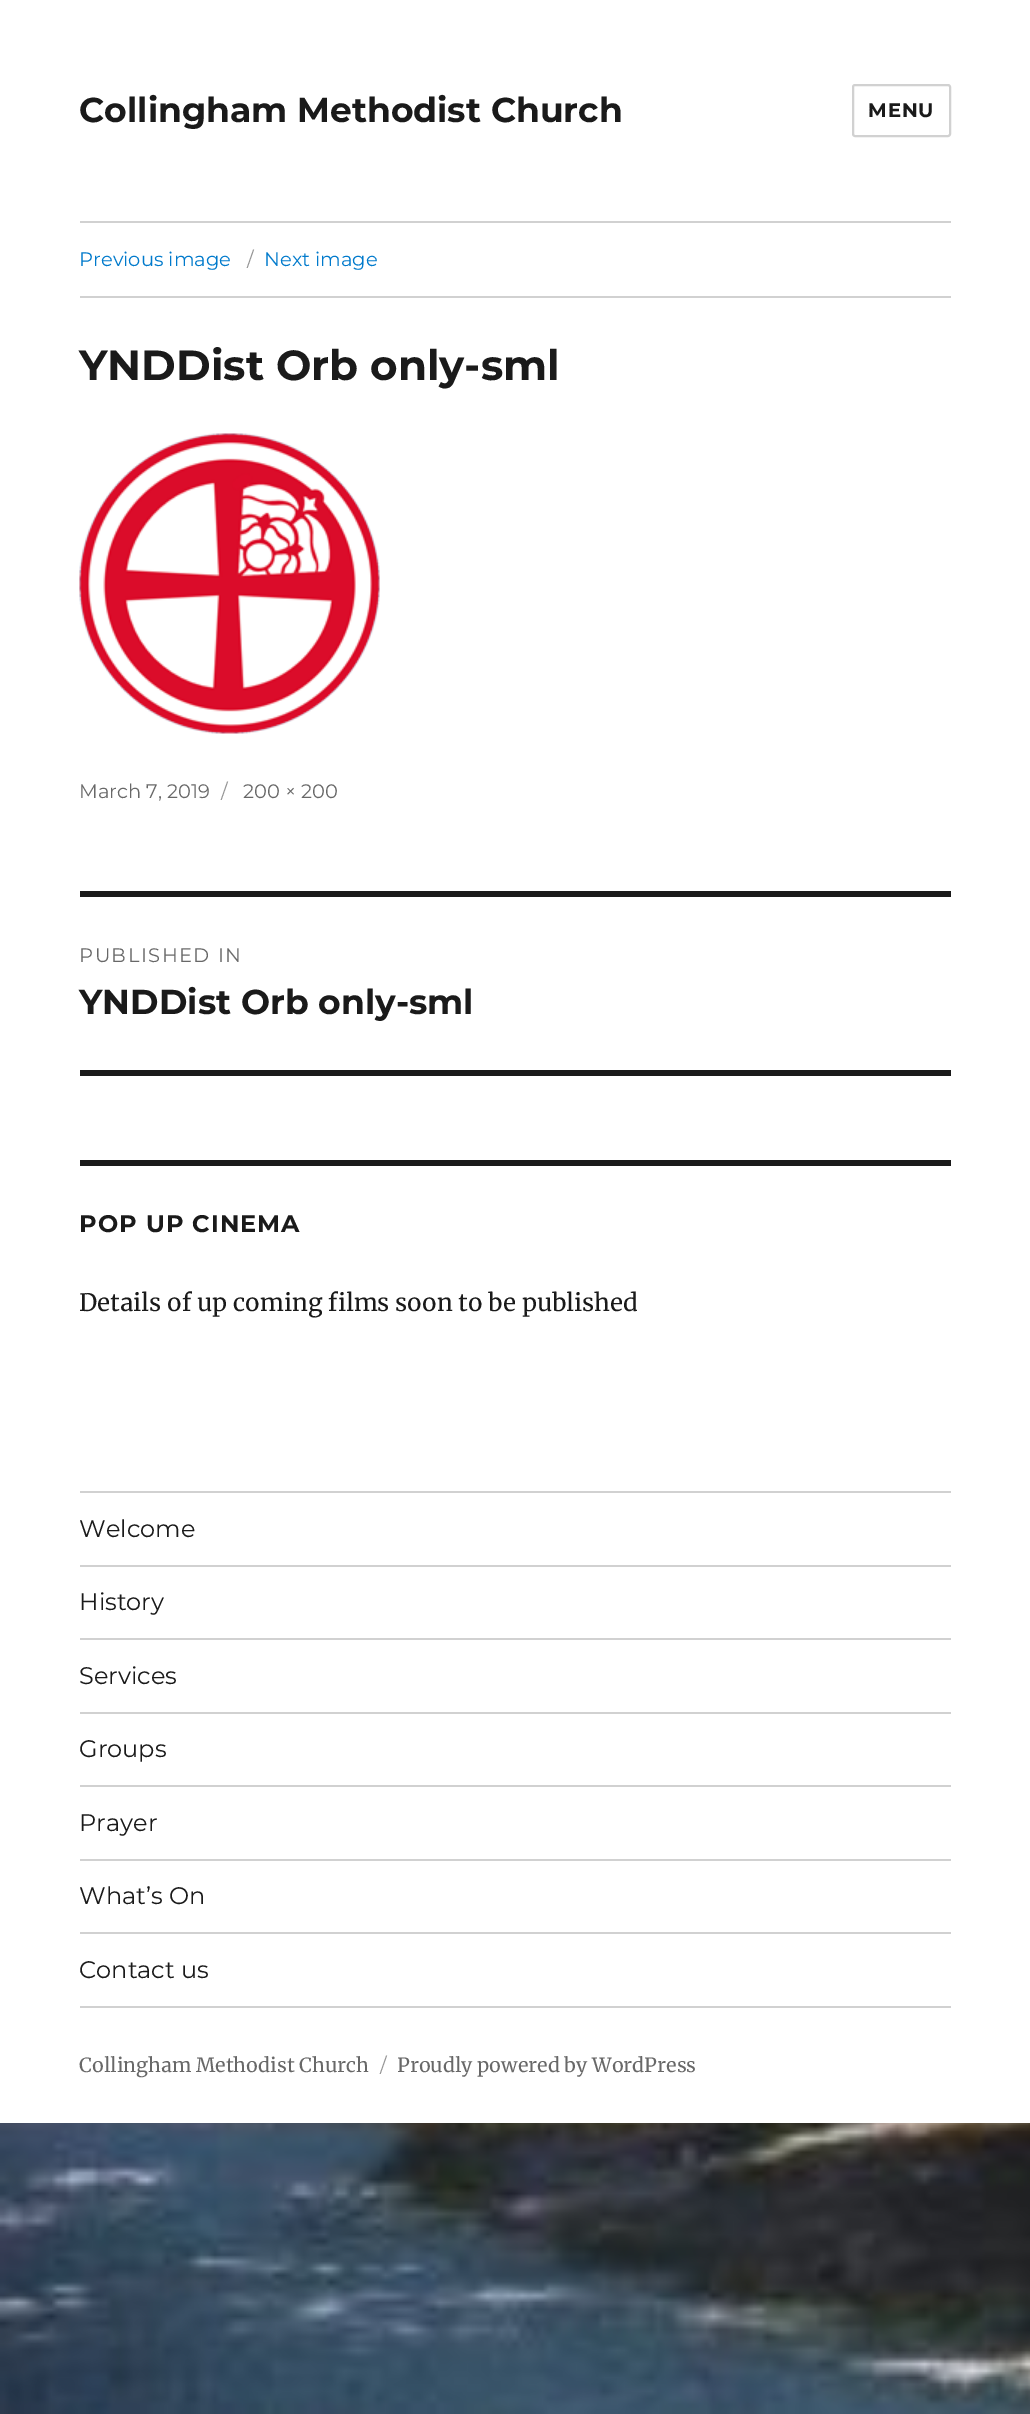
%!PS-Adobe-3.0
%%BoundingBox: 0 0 1030 2414
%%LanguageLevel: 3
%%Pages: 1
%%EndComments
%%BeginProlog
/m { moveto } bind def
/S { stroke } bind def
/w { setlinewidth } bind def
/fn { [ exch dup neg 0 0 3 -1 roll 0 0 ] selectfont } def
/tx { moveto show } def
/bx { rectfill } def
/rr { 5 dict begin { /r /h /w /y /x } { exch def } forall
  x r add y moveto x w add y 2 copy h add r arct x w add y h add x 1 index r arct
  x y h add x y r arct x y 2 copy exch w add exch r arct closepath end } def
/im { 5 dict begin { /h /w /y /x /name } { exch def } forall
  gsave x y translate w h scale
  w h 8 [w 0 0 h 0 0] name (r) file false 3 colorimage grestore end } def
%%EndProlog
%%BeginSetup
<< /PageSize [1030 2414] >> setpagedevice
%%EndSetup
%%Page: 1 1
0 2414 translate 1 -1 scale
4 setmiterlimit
1 setgray
0 0 1030 2414 bx
(image0.raw) 0 2123 1030 291 im
/Montserrat-Thin 34.5 fn
0.102 setgray
(Collingham Methodist Church) 79 122 tx
0.82 setgray
2 w
853 85 97 51 2 rr S
/Montserrat-Thin 19.5 fn
0.102 setgray
868 117 m 1 0 (MENU) ashow
0.82 setgray
80 221 871 2 bx
80 296 871 2 bx
/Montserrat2-Thin 19.5 fn
0 0.478 0.8 setrgbcolor
(Previous image) 79 266 tx
0.584 setgray
(/) 247 266 tx
0 0.478 0.8 setrgbcolor
(Next image) 264 266 tx
/Montserrat-Thin 42 fn
0.102 setgray
(YNDDist Orb only-sml) 79 380 tx
(image1.raw) 79 433 301 301 im
/Montserrat2-Thin 19.5 fn
0.408 setgray
(March 7, 2019) 79 798 tx
0.584 setgray
(/) 221 798 tx
0.408 setgray
(200 × 200) 243 798 tx
0.102 setgray
80 891 871 6 bx
80 1070 871 6 bx
0.408 setgray
79 962 m 1.5 0 (PUBLISHED IN) ashow
/Montserrat-Thin 34.5 fn
0.102 setgray
(YNDDist Orb only-sml) 79 1014 tx
80 1160 871 6 bx
/Montserrat-Thin 24 fn
79 1232 m 1.1 0 (POP UP CINEMA) ashow
/Merriweather-Regular 24 fn
(Details of up coming films soon to be published) 79 1311 tx
0.82 setgray
80 2006 871 2 bx
80 1491 871 2 bx
/Montserrat2-Thin 24 fn
0.102 setgray
(Welcome) 79 1537 tx
0.82 setgray
80 1565 871 2 bx
0.102 setgray
(History) 79 1610 tx
0.82 setgray
80 1638 871 2 bx
0.102 setgray
(Services) 79 1684 tx
0.82 setgray
80 1712 871 2 bx
0.102 setgray
(Groups) 79 1757 tx
0.82 setgray
80 1785 871 2 bx
0.102 setgray
(Prayer) 79 1831 tx
0.82 setgray
80 1859 871 2 bx
0.102 setgray
(What’s On) 79 1904 tx
0.82 setgray
80 1932 871 2 bx
0.102 setgray
(Contact us) 79 1978 tx
/Merriweather-Regular 19.5 fn
0.408 setgray
(Collingham Methodist Church) 79 2072 tx
/Montserrat2-Thin 19.5 fn
0.584 setgray
(/) 380 2072 tx
/Merriweather-Regular 19.5 fn
0.408 setgray
(Proudly powered by WordPress) 397 2072 tx
showpage
%%EOF
